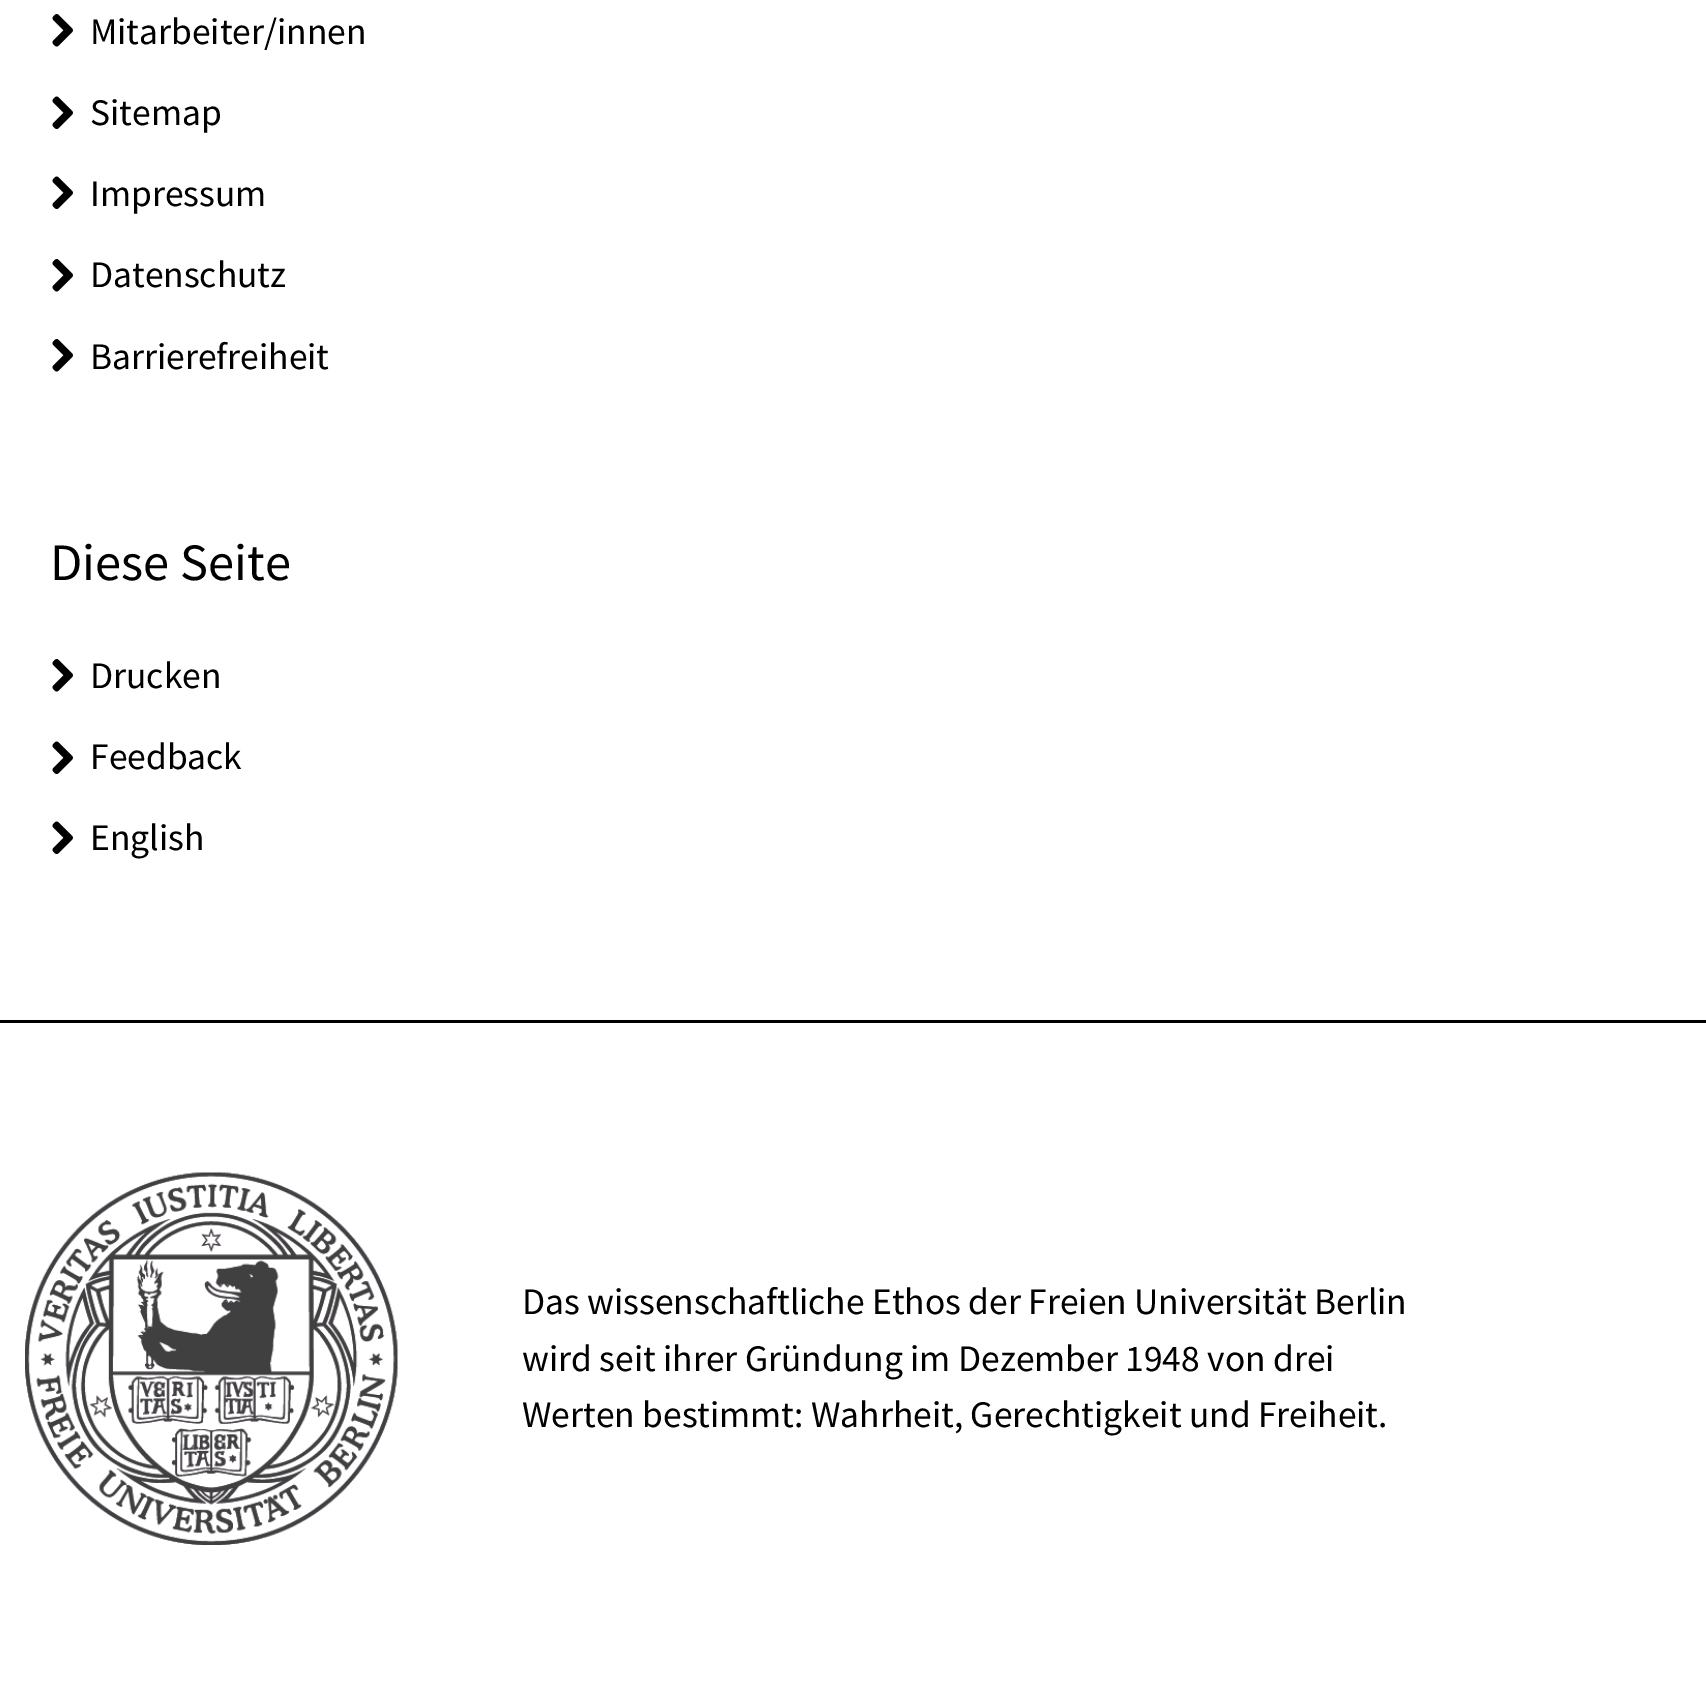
%!PS-Adobe-3.0
%%BoundingBox: 0 0 1706 1694
%%LanguageLevel: 3
%%Pages: 1
%%EndComments
%%BeginProlog
/fn { [ exch dup neg 0 0 3 -1 roll 0 0 ] selectfont } def
/tx { moveto show } def
/bx { rectfill } def
/im { 5 dict begin { /h /w /y /x /name } { exch def } forall
  gsave x y translate w h scale
  w h 8 [w 0 0 h 0 0] name (r) file false 3 colorimage grestore end } def
%%EndProlog
%%BeginSetup
<< /PageSize [1706 1694] >> setpagedevice
%%EndSetup
%%Page: 1 1
0 1694 translate 1 -1 scale
4 setmiterlimit
1 setgray
0 0 1706 1694 bx
0 setgray
0 1020 1706 3 bx
(image0.raw) 52 14 21 33 im
/SourceSansPro-Regular 37.5 fn
(Mitarbeiter/innen) 90 44 tx
(image1.raw) 52 96 21 34 im
(Sitemap) 90 125 tx
(image1.raw) 52 176 21 34 im
(Impressum) 90 206 tx
(image0.raw) 52 259 21 33 im
(Datenschutz) 90 287 tx
(image0.raw) 52 339 21 33 im
(Barrierefreiheit) 90 369 tx
/SourceSansPro-Regular 52.5 fn
(Diese Seite) 50 580 tx
(image0.raw) 52 659 21 33 im
/SourceSansPro-Regular 37.5 fn
(Drucken) 90 688 tx
(image1.raw) 52 741 21 34 im
(Feedback) 90 769 tx
(image1.raw) 52 821 21 34 im
(English) 90 850 tx
(image2.raw) 25 1172 373 373 im
(Das wissenschaftliche Ethos der Freien Universität Berlin) 522 1314 tx
(wird seit ihrer Gründung im Dezember 1948 von drei) 522 1371 tx
(Werten bestimmt: Wahrheit, Gerechtigkeit und Freiheit.) 522 1427 tx
showpage
%%EOF
